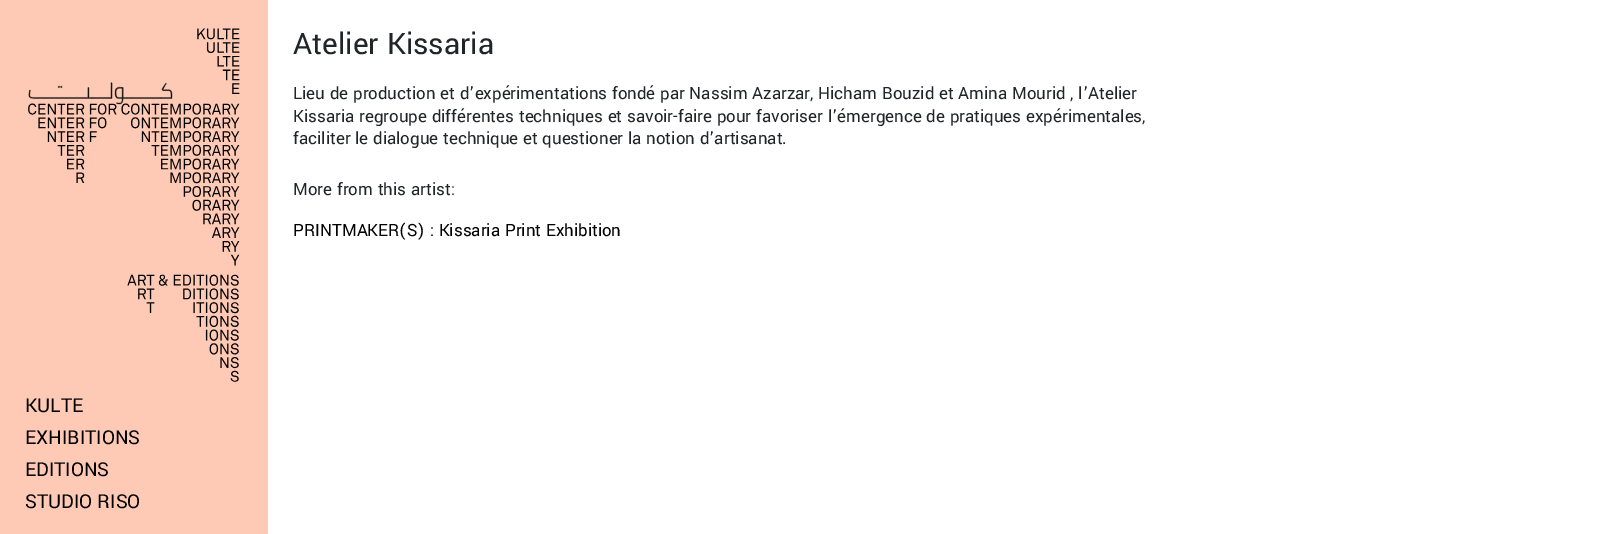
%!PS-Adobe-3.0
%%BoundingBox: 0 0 1605 534
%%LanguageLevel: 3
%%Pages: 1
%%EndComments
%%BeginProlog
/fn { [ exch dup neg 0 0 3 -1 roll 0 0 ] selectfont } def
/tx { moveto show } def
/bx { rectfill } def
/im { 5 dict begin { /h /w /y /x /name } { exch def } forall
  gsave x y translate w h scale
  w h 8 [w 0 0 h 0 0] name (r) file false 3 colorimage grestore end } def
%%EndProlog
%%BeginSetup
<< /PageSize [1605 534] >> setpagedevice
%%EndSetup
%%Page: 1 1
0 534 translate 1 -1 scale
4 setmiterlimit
1 setgray
0 0 1605 534 bx
/Yantramanav-Regular 32.75 fn
0.129 0.145 0.161 setrgbcolor
(Atelier Kissaria) 293 54 tx
/Yantramanav-Regular 18.75 fn
(Lieu de production et d’expérimentations fondé par Nassim Azarzar, Hicham Bouzid et Amina Mourid , l’Atelier) 293 99 tx
(Kissaria regroupe différentes techniques et savoir-faire pour favoriser l’émergence de pratiques expérimentales,) 293 122 tx
(faciliter le dialogue technique et questioner la notion d’artisanat.) 293 144 tx
(More from this artist:) 293 195 tx
0 setgray
(PRINTMAKER\(S\) : Kissaria Print Exhibition) 293 236 tx
0.996 0.792 0.71 setrgbcolor
0 0 268 534 bx
(image0.raw) 28 28 212 354 im
/Yantramanav-Regular 21.25 fn
0 setgray
(KULTE) 25 412 tx
(EXHIBITIONS) 25 444 tx
(EDITIONS) 25 476 tx
(STUDIO RISO) 25 508 tx
showpage
%%EOF
